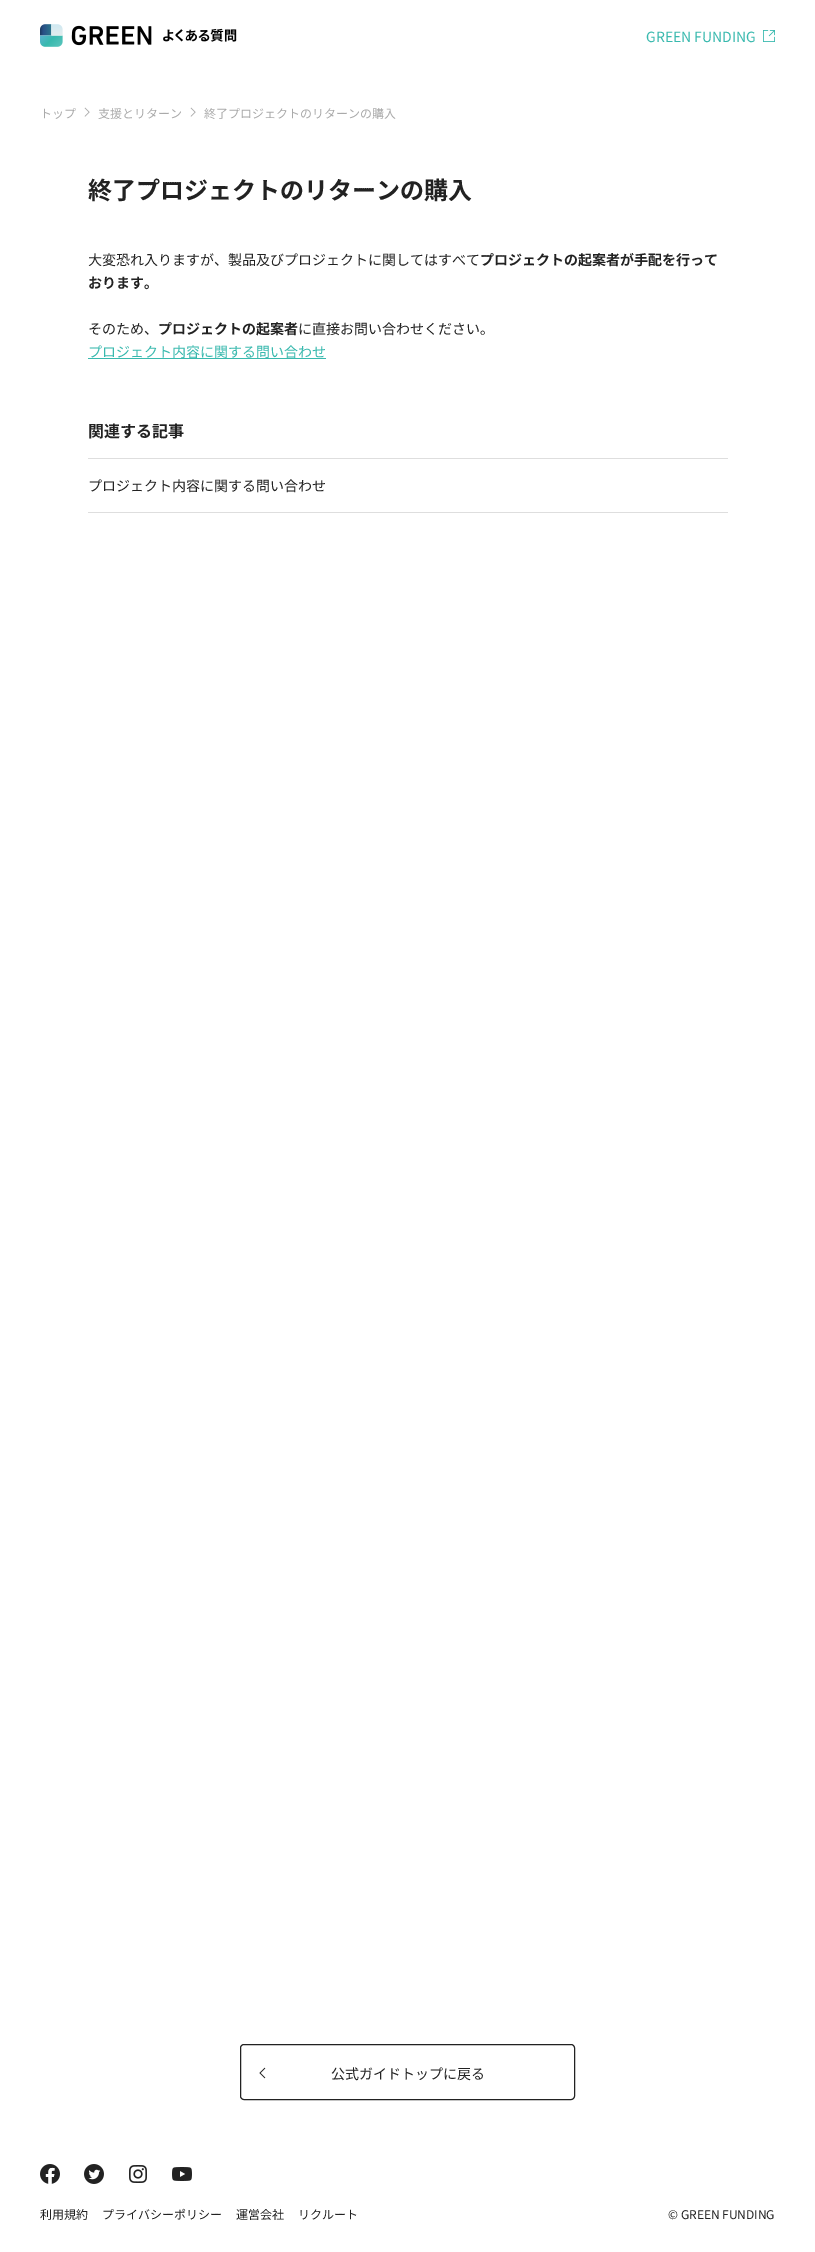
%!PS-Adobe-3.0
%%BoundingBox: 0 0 815 2252
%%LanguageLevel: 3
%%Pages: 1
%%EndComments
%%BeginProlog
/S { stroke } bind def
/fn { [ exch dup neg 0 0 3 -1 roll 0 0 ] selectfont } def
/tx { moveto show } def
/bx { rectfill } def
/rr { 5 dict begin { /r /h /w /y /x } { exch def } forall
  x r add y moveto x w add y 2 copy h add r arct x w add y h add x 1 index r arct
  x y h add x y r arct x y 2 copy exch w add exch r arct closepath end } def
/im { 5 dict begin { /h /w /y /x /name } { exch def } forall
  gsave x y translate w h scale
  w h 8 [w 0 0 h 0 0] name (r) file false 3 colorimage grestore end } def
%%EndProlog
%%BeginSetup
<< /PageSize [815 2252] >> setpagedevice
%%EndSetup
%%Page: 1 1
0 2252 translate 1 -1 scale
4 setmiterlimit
1 setgray
0 0 815 2252 bx
(image0.raw) 40 24 197 23 im
/NotoSansJP-Regular 14 fn
0.22 0.725 0.682 setrgbcolor
(GREEN FUNDING) 646 42 tx
(image1.raw) 763 30 12 12 im
/NotoSansJP-Regular 12 fn
0.667 setgray
(トップ) 40 118 tx
(image2.raw) 84 107 6 10 im
(支援とリターン) 98 118 tx
(image2.raw) 190 107 6 10 im
(終了プロジェクトのリターンの購入) 204 118 tx
/NotoSansJP-Bold 24 fn
0.133 setgray
(終了プロジェクトのリターンの購入) 88 199 tx
/NotoSansJP-Regular 14 fn
(大変恐れ入りますが、製品及びプロジェクトに関してはすべて) 88 265 tx
/NotoSansJP-Bold 14 fn
(プロジェクトの起案者が手配を行って) 480 265 tx
(おります。) 88 288 tx
/NotoSansJP-Regular 14 fn
(そのため、) 88 334 tx
/NotoSansJP-Bold 14 fn
(プロジェクトの起案者) 158 334 tx
/NotoSansJP-Regular 14 fn
(に直接お問い合わせください。) 298 334 tx
0.22 0.725 0.682 setrgbcolor
88 358 238 1 bx
(プロジェクト内容に関する問い合わせ) 88 357 tx
/NotoSansJP-Bold 16 fn
0.133 setgray
(関連する記事) 88 437 tx
0.871 setgray
88 458 640 1 bx
88 512 640 1 bx
/NotoSansJP-Regular 14 fn
0.133 setgray
(プロジェクト内容に関する問い合わせ) 88 491 tx
240.5 2044.5 334 55 3.5 rr S
(image3.raw) 259 2067 7 12 im
(公式ガイドトップに戻る) 331 2079 tx
(image4.raw) 40 2164 20 20 im
(image5.raw) 84 2164 20 20 im
(image6.raw) 129 2165 18 18 im
(image7.raw) 172 2167 20 14 im
/NotoSansJP-Regular 12 fn
(利用規約) 40 2219 tx
(プライバシーポリシー) 102 2219 tx
(運営会社) 236 2219 tx
(リクルート) 298 2219 tx
(© GREEN FUNDING) 668 2219 tx
showpage
%%EOF
